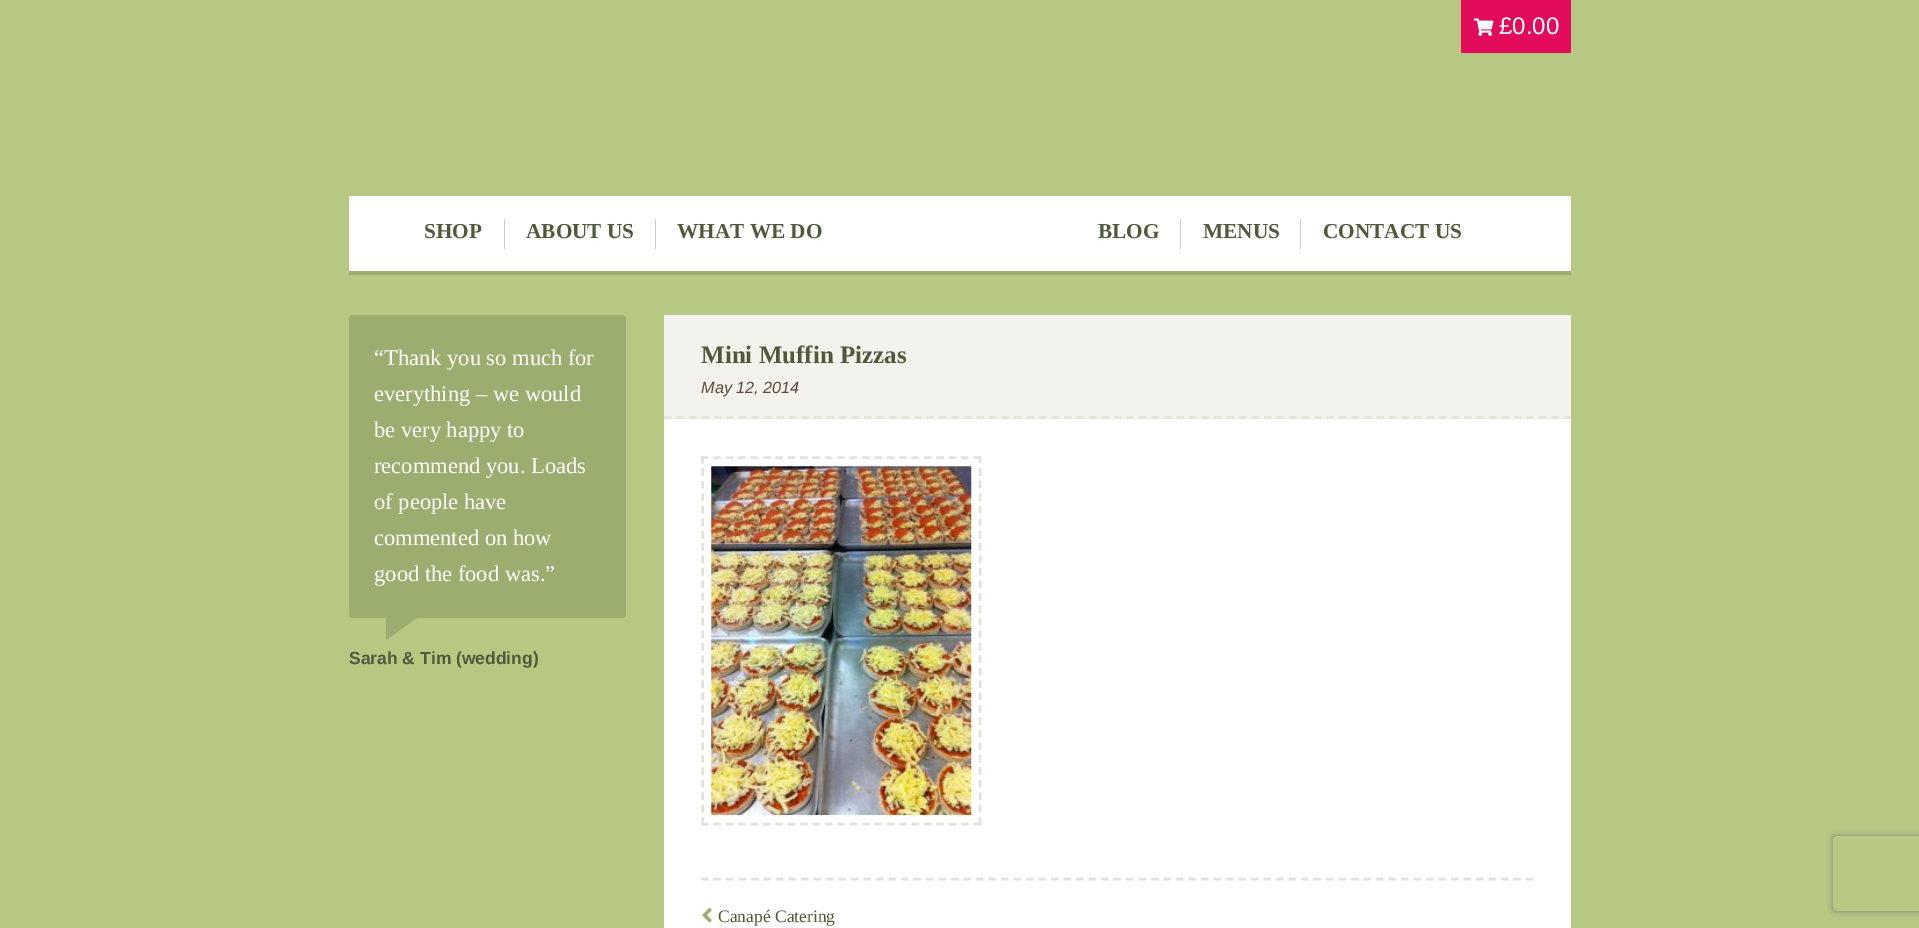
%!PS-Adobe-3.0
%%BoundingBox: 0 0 1919 928
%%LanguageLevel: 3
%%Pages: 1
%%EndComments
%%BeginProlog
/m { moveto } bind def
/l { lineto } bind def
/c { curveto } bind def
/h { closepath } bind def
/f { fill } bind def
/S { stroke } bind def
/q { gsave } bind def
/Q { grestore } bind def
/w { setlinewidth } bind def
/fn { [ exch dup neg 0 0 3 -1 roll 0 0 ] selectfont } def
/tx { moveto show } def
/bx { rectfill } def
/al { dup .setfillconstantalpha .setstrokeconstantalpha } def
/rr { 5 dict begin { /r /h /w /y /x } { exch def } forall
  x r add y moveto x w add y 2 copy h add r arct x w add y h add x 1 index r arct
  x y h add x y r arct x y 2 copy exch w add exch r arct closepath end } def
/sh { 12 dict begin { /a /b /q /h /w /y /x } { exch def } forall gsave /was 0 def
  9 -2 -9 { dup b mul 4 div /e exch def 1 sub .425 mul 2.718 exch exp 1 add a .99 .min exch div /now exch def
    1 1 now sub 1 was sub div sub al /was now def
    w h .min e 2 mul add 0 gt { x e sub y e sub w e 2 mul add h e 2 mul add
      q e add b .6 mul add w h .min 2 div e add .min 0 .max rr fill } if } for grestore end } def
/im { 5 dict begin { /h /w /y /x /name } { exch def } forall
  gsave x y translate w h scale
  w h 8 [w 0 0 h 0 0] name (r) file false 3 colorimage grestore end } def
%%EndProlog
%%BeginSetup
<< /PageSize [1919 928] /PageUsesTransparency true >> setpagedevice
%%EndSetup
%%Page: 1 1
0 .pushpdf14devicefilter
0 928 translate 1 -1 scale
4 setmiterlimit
0.714 0.784 0.506 setrgbcolor
0 0 1919 928 bx
0.89 0.043 0.361 setrgbcolor
1461 0 110 53 bx
(image0.raw) 1473 18 21 18 im
/LiberationSans-Regular 24 fn
1 setgray
(£0.00) 1499 34 tx
349 196 1222 75 bx
0.612 0.678 0.439 setrgbcolor
349 271 1222 4 bx
/LiberationSerif-Bold 21.25 fn
0.318 0.349 0.231 setrgbcolor
(SHOP) 424 238 tx
0.8 setgray
504 219 1 30 bx
0.318 0.349 0.231 setrgbcolor
(ABOUT US) 526 238 tx
0.8 setgray
655 219 1 30 bx
0.318 0.349 0.231 setrgbcolor
(WHAT WE DO) 677 238 tx
(BLOG) 1098 238 tx
0.8 setgray
1180 219 1 30 bx
0.318 0.349 0.231 setrgbcolor
(MENUS) 1203 238 tx
0.8 setgray
1300 219 1 30 bx
0.318 0.349 0.231 setrgbcolor
(CONTACT US) 1323 238 tx
0.612 0.678 0.439 setrgbcolor
349 315 277 303 4 rr f
/LiberationSerif-Regular 22.5 fn
1 setgray
(“Thank you so much for) 374 365 tx
(everything – we would) 374 401 tx
(be very happy to) 374 437 tx
(recommend you. Loads) 374 473 tx
(of people have) 374 509 tx
(commented on how) 374 545 tx
(good the food was.”) 374 581 tx
0.612 0.678 0.439 setrgbcolor
386 617.5 m 417.5 617.5 l 386 640 l h f
/LiberationSans-Bold 17.5 fn
0.318 0.349 0.231 setrgbcolor
(Sarah & Tim \(wedding\)) 349 664 tx
0.953 0.949 0.925 setrgbcolor
664 315 907 104 bx
0.894 0.886 0.859 setrgbcolor
2.5 w
[7.5 5] 0 setdash
664 417.5 m 1571 417.5 l S
/LiberationSerif-Bold 25 fn
0.318 0.349 0.231 setrgbcolor
(Mini Muffin Pizzas) 701 363 tx
/LiberationSans-Italic 16.25 fn
0.357 0.278 0.196 setrgbcolor
(May 12, 2014) 701 393 tx
1 setgray
664 419 907 509 bx
0.894 0.886 0.859 setrgbcolor
[7.5 4.89] 0 setdash
701 457.5 m 981 457.5 l S
[7.5 4.96] 0 setdash
980 456 m 980 825 l S
[7.5 4.89] 0 setdash
701 824 m 981 824 l S
[7.5 4.96] 0 setdash
702.5 456 m 702.5 825 l S
(image1.raw) 711 466 261 349 im
[7.5 5] 0 setdash
701 879 m 1534 879 l S
(image2.raw) 702 908 10 15 im
/LiberationSerif-Regular 17.5 fn
0.318 0.349 0.231 setrgbcolor
(Canapé Catering) 718 922 tx
q
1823 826 m 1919 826 l 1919 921 l 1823 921 l h 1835.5 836 m 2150.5 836 l 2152 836 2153 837 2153 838.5 c 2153 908.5 l 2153 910 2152 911 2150.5 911 c 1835.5 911 l 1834 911 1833 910 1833 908.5 c 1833 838.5 l 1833 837 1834 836 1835.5 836 c h eoclip newpath
0.502 setgray
1833 836 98 75 2.5 3 1 sh
Q
.poppdf14devicefilter showpage
%%EOF
